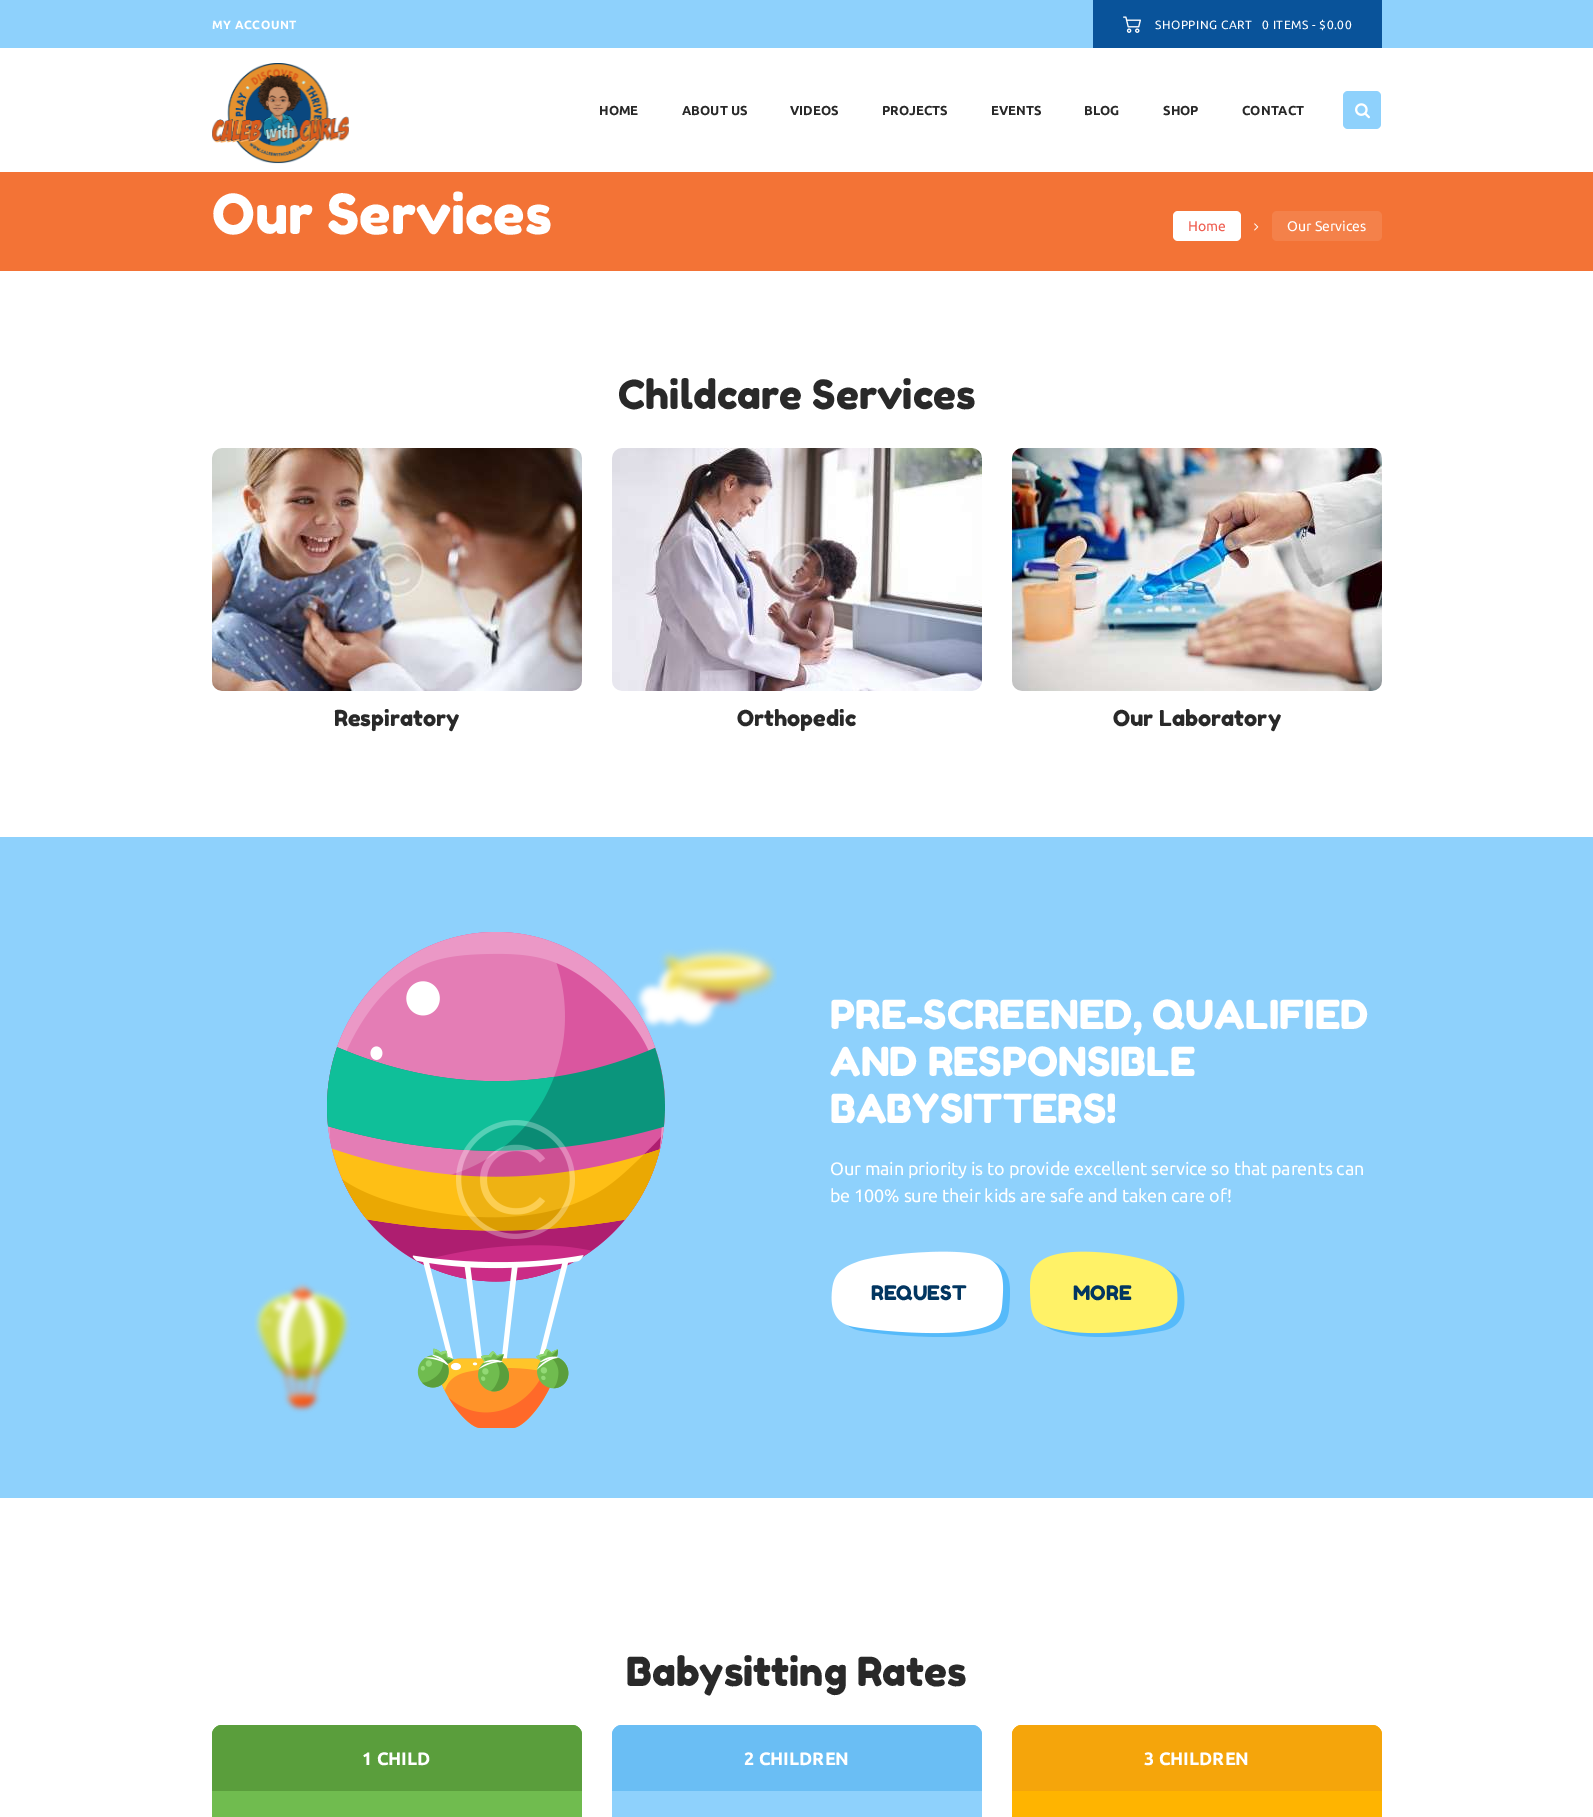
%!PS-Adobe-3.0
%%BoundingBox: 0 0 1593 1817
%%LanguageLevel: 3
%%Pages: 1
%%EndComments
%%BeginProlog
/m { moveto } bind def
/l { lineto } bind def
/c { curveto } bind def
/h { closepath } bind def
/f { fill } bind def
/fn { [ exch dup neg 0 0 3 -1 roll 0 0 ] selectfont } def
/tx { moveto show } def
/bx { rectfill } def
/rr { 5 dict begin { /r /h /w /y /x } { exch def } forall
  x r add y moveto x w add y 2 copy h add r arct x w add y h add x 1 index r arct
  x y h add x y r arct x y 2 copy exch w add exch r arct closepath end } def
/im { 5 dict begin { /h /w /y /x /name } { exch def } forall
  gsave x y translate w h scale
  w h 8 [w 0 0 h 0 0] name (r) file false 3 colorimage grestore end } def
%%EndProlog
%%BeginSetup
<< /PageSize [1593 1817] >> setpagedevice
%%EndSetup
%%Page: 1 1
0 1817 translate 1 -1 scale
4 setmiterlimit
1 setgray
0 0 1593 1817 bx
0.557 0.82 0.988 setrgbcolor
0 0 1593 48 bx
/Ubuntu-Bold 12 fn
1 setgray
212 29 m 0.5 0 (MY ACCOUNT) ashow
0.035 0.325 0.604 setrgbcolor
1093 0 289 48 bx
(image0.raw) 1123 16 18 17 im
/Ubuntu-Regular 12 fn
1 setgray
1155 29 m 0.5 0 (SHOPPING CART) ashow
1262 29 m 0.5 0 (0 ITEMS - $0.00) ashow
(image1.raw) 212 63 137 101 im
/Ubuntu-Bold 13 fn
0.161 setgray
(HOME) 599 115 tx
(ABOUT US) 682 115 tx
(VIDEOS) 790 115 tx
(PROJECTS) 882 115 tx
(EVENTS) 991 115 tx
(BLOG) 1084 115 tx
(SHOP) 1163 115 tx
(CONTACT) 1242 115 tx
0.557 0.82 0.988 setrgbcolor
1343 91 38 38 5 rr f
(image2.raw) 1355 103 15 16 im
0.953 0.451 0.212 setrgbcolor
0 172 1593 99 bx
/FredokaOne-Regular 55 fn
1 setgray
(Our Services) 212 234 tx
1173 211 68 30 5 rr f
/Ubuntu-Regular 14 fn
0.937 0.365 0.314 setrgbcolor
(Home) 1188 231 tx
(image3.raw) 1254 223 5 8 im
0.957 0.506 0.29 setrgbcolor
1272 211 110 30 5 rr f
1 setgray
(Our Services) 1287 231 tx
/FredokaOne-Regular 40 fn
0.161 setgray
(Childcare Services) 618 409 tx
(image4.raw) 212 448 370 243 im
/FredokaOne-Regular 22 fn
(Respiratory) 334 726 tx
(image5.raw) 612 448 370 243 im
(Orthopedic) 737 726 tx
(image6.raw) 1012 448 370 243 im
(Our Laboratory) 1113 726 tx
0.557 0.82 0.988 setrgbcolor
0 837 1593 661 bx
(image7.raw) 254 932 523 496 im
/FredokaOne-Regular 40 fn
1 setgray
(PRE-SCREENED, QUALIFIED) 830 1029 tx
(AND RESPONSIBLE) 830 1076 tx
(BABYSITTERS!) 830 1123 tx
/Ubuntu-Regular 18 fn
830 1175 m -0.17 0 (Our main priority is to provide excellent service so that parents can) ashow
830 1202 m -0.17 0 (be 100% sure their kids are safe and taken care of!) ashow
(image8.raw) 831 1251 179 86 im
/FredokaOne-Regular 20 fn
0.008 0.212 0.38 setrgbcolor
(REQUEST) 871 1300 tx
(image9.raw) 1030 1251 155 86 im
(MORE) 1073 1300 tx
/FredokaOne-Regular 40 fn
0.161 setgray
(Babysitting Rates) 626 1686 tx
0.439 0.737 0.31 setrgbcolor
212 1725 370 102 10 rr f
0.353 0.62 0.235 setrgbcolor
222 1725 m 572 1725 l 577.5 1725 582 1729.5 582 1735 c 582 1791 l 212 1791 l 212 1735 l 212 1729.5 216.5 1725 222 1725 c h f
/Ubuntu-Bold 18 fn
1 setgray
(1 CHILD) 362 1765 tx
0.557 0.82 0.988 setrgbcolor
612 1725 370 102 10 rr f
0.416 0.745 0.957 setrgbcolor
622 1725 m 972 1725 l 977.5 1725 982 1729.5 982 1735 c 982 1791 l 612 1791 l 612 1735 l 612 1729.5 616.5 1725 622 1725 c h f
1 setgray
(2 CHILDREN) 744 1765 tx
1 0.706 0 setrgbcolor
1012 1725 370 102 10 rr f
0.961 0.647 0.043 setrgbcolor
1022 1725 m 1372 1725 l 1377.5 1725 1382 1729.5 1382 1735 c 1382 1791 l 1012 1791 l 1012 1735 l 1012 1729.5 1016.5 1725 1022 1725 c h f
1 setgray
(3 CHILDREN) 1144 1765 tx
showpage
%%EOF
